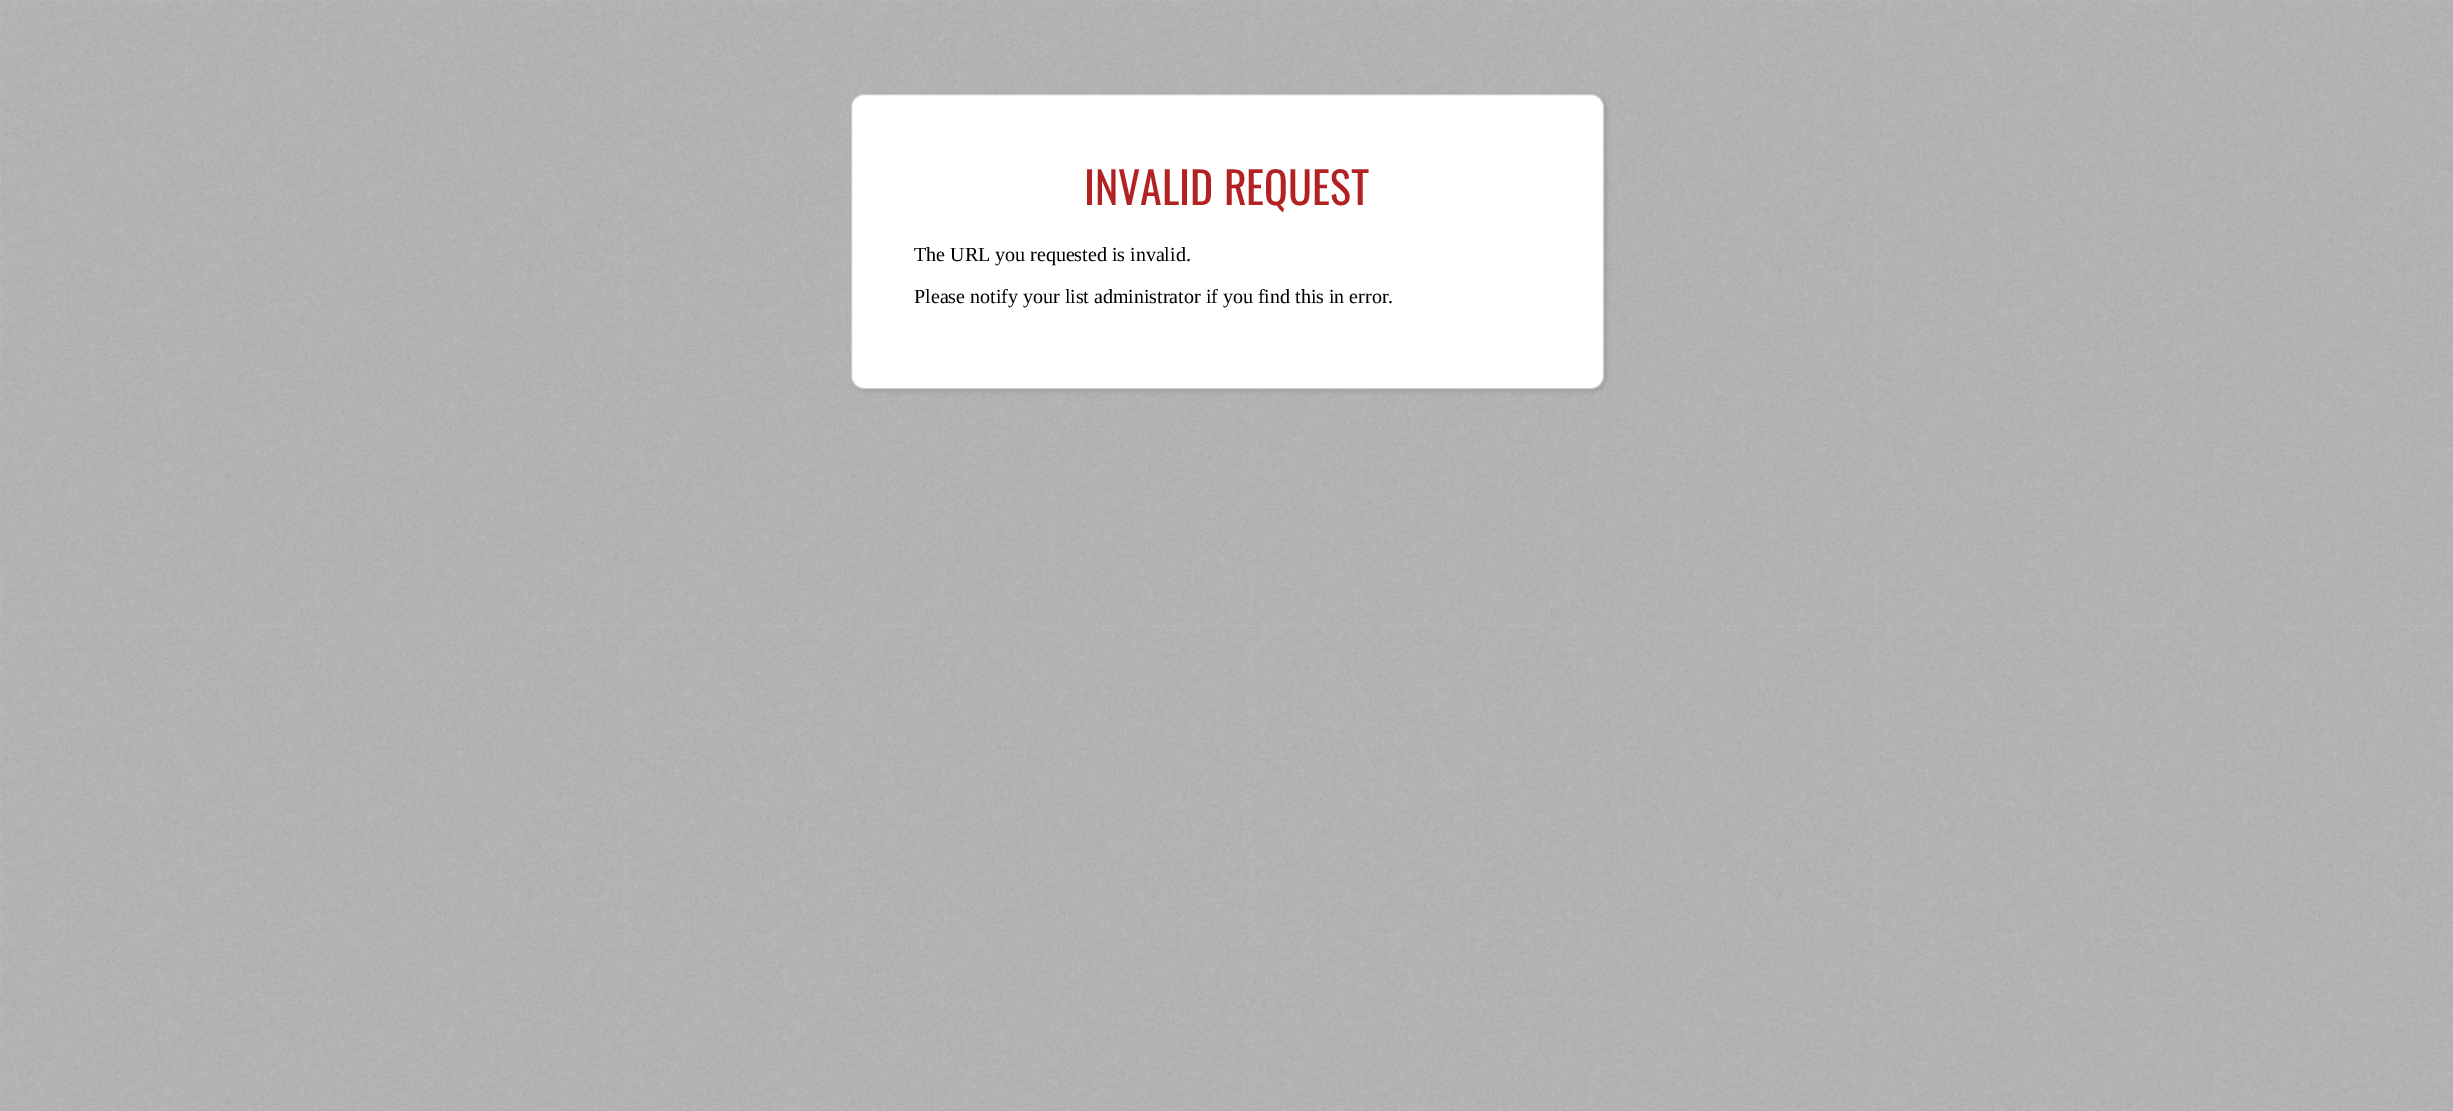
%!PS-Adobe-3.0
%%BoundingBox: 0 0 2453 1111
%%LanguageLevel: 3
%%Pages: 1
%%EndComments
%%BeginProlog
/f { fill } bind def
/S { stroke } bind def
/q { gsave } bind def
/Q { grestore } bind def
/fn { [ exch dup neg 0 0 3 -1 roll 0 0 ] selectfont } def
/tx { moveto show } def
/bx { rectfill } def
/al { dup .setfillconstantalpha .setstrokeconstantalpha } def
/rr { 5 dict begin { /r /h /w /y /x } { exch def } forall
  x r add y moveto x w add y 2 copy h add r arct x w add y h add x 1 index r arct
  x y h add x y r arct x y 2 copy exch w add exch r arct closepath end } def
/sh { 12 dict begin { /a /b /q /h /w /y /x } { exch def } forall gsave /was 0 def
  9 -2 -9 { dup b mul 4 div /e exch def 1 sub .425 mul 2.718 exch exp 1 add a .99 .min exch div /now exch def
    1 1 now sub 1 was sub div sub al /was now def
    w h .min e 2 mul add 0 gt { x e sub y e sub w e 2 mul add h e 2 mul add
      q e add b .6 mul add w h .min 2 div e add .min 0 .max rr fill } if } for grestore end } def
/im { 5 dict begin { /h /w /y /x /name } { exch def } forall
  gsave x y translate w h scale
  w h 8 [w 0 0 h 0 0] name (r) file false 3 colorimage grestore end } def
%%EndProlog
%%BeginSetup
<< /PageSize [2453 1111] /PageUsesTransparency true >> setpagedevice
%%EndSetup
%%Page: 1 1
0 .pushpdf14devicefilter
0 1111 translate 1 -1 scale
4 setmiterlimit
1 setgray
0 0 2453 1111 bx
(image0.raw) 0 0 2453 1111 im
0.6 setgray
854 96 752 295 13 2.5 1 sh
1 setgray
851.5 94.5 752 294 12.5 rr q f Q
0.8 setgray
S
/Oswald-Regular 44 fn
0.698 0.133 0.133 setrgbcolor
(INVALID REQUEST) 1084 205 tx
/LiberationSerif-Regular 20 fn
0 setgray
(The URL you requested is invalid.) 914 261 tx
(Please notify your list administrator if you find this in error.) 914 303 tx
.poppdf14devicefilter showpage
%%EOF
